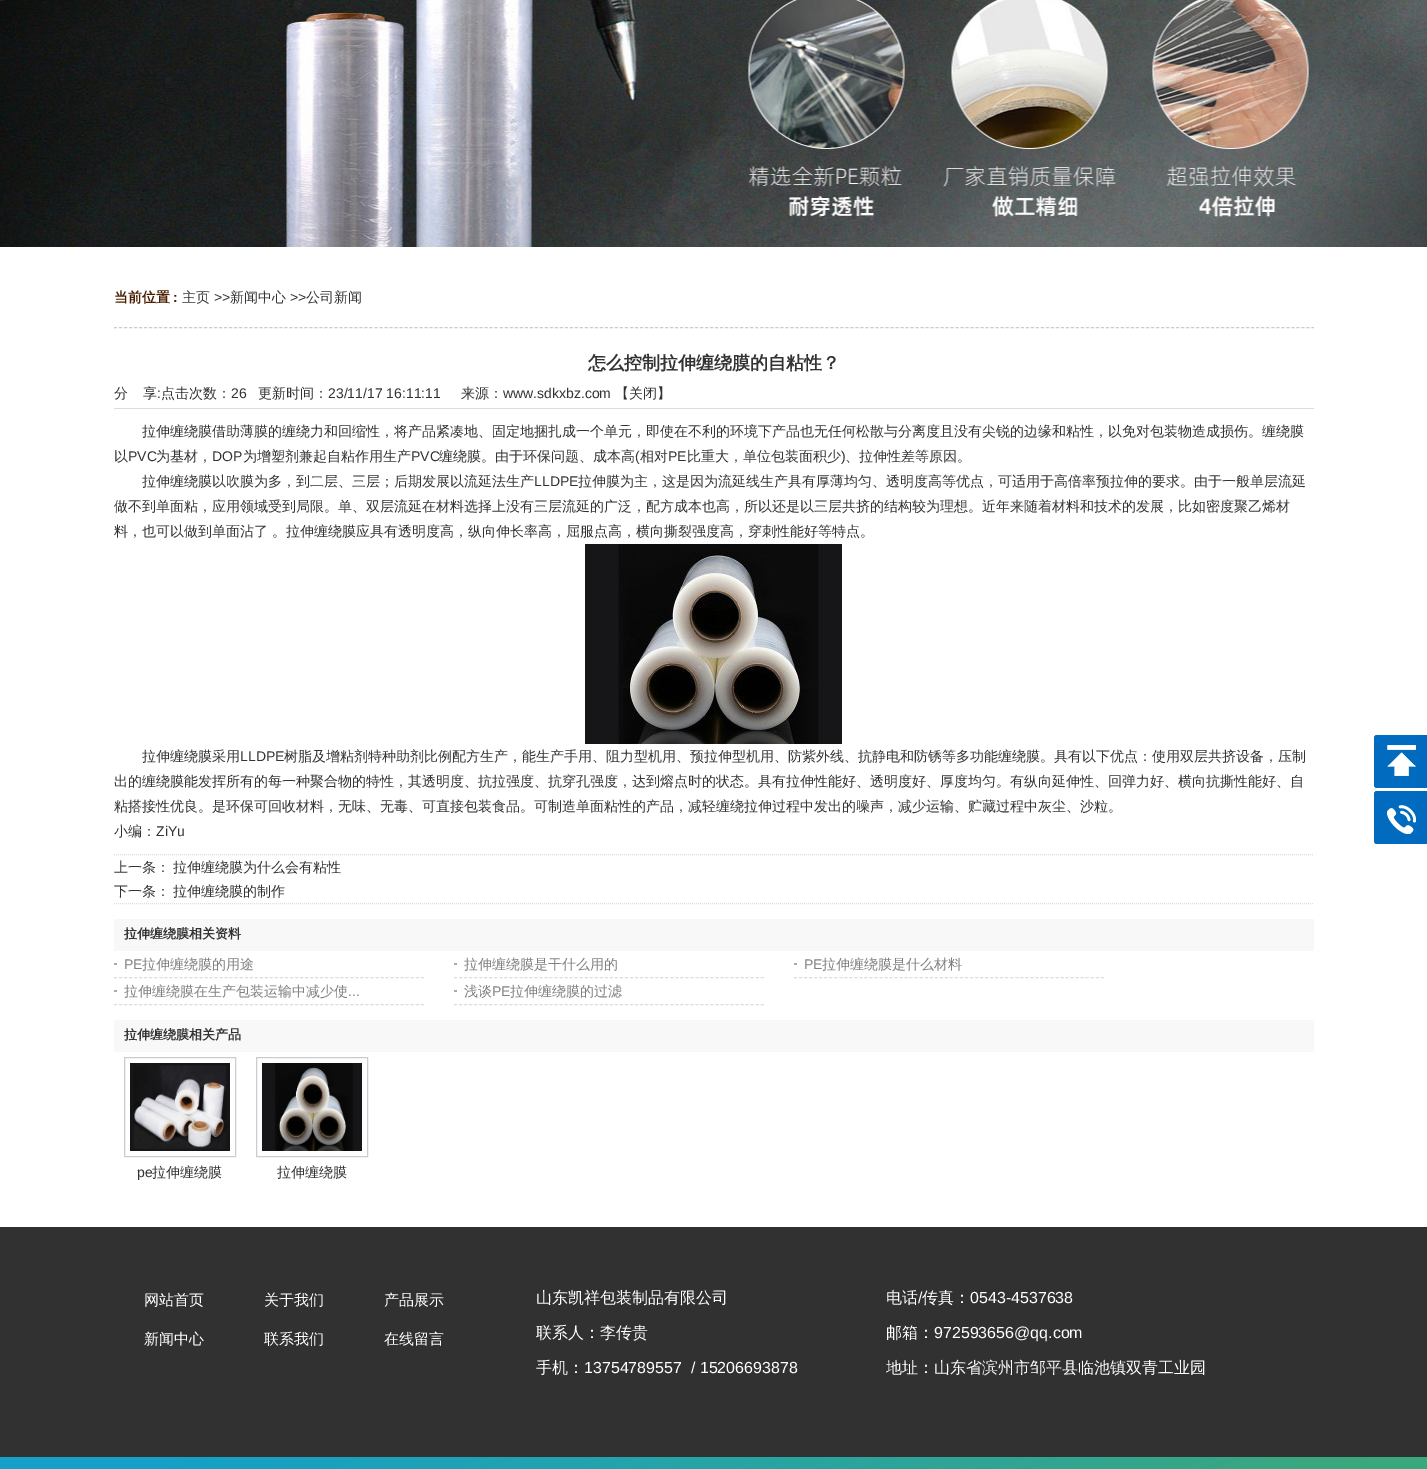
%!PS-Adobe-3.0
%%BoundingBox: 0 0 1427 1469
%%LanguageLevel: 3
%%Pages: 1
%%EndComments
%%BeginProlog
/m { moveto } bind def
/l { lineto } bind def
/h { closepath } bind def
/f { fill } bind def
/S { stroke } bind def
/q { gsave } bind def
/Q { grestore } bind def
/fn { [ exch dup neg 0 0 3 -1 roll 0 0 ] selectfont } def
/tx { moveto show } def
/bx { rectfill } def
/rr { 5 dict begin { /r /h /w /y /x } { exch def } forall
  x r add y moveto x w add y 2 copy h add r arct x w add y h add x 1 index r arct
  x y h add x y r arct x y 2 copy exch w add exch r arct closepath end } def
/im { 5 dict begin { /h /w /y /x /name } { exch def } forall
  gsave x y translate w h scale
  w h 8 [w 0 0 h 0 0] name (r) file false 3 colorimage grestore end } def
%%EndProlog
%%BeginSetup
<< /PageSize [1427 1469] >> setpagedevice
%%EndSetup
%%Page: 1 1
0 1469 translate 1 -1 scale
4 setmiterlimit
1 setgray
0 0 1427 1469 bx
(image0.raw) 0 0 1427 247 im
0.8 setgray
[3 2.01] 0 setdash
114 327.5 m 1314 327.5 l S
/WenQuanYiZenHei-Bold 14 fn
0.29 0.114 0 setrgbcolor
(当前位置) 114 302 tx
/LiberationSans-Bold 14 fn
(:) 173 302 tx
/WenQuanYiZenHei-Medium 14 fn
0.2 setgray
(主页) 182 302 tx
/LiberationSans-Regular 14 fn
(>>) 214 302 tx
/WenQuanYiZenHei-Medium 14 fn
(新闻中心) 230 302 tx
/LiberationSans-Regular 14 fn
(>>) 290 302 tx
/WenQuanYiZenHei-Medium 14 fn
(公司新闻) 306 302 tx
/WenQuanYiZenHei-Bold 18 fn
(怎么控制拉伸缠绕膜的自粘性？) 588 369 tx
0.867 setgray
114 408 1200 1 bx
/WenQuanYiZenHei-Medium 14 fn
0.2 setgray
(分) 114 398 tx
(享) 143 398 tx
/LiberationSans-Regular 14 fn
(:) 157 398 tx
/WenQuanYiZenHei-Medium 14 fn
(点击次数：) 161 398 tx
/LiberationSans-Regular 14 fn
(26) 231 398 tx
/WenQuanYiZenHei-Medium 14 fn
(更新时间：) 258 398 tx
/LiberationSans-Regular 14 fn
(23/11/17 16:11:11) 328 398 tx
/WenQuanYiZenHei-Medium 14 fn
(来源：) 461 398 tx
/LiberationSans-Regular 14 fn
(www.sdkxbz.com) 503 398 tx
/WenQuanYiZenHei-Medium 14 fn
(【关闭】) 615 398 tx
(拉伸缠绕膜借助薄膜的缠绕力和回缩性，将产品紧凑地、固定地捆扎成一个单元，即使在不利的环境下产品也无任何松散与分离度且没有尖锐的边缘和粘性，以免对包装物造成损伤。缠绕膜) 142 436 tx
(以) 114 461 tx
/LiberationSans-Regular 14 fn
(PVC) 128 461 tx
/WenQuanYiZenHei-Medium 14 fn
(为基材，) 156 461 tx
/LiberationSans-Regular 14 fn
(DOP) 212 461 tx
/WenQuanYiZenHei-Medium 14 fn
(为增塑剂兼起自粘作用生产) 243 461 tx
/LiberationSans-Regular 14 fn
(PVC) 411 461 tx
/WenQuanYiZenHei-Medium 14 fn
(缠绕膜。由于环保问题、成本高) 439 461 tx
/LiberationSans-Regular 14 fn
(\() 635 461 tx
/WenQuanYiZenHei-Medium 14 fn
(相对) 640 461 tx
/LiberationSans-Regular 14 fn
(PE) 668 461 tx
/WenQuanYiZenHei-Medium 14 fn
(比重大，单位包装面积少) 687 461 tx
/LiberationSans-Regular 14 fn
(\)) 841 461 tx
/WenQuanYiZenHei-Medium 14 fn
(、拉伸性差等原因。) 845 461 tx
(拉伸缠绕膜以吹膜为多，到二层、三层；后期发展以流延法生产) 142 486 tx
/LiberationSans-Regular 14 fn
(LLDPE) 534 486 tx
/WenQuanYiZenHei-Medium 14 fn
(拉伸膜为主，这是因为流延线生产具有厚薄均匀、透明度高等优点，可适用于高倍率预拉伸的要求。由于一般单层流延) 578 486 tx
(做不到单面粘，应用领域受到局限。单、双层流延在材料选择上没有三层流延的广泛，配方成本也高，所以还是以三层共挤的结构较为理想。近年来随着材料和技术的发展，比如密度聚乙烯材) 114 511 tx
(料，也可以做到单面沾了 。拉伸缠绕膜应具有透明度高，纵向伸长率高，屈服点高，横向撕裂强度高，穿刺性能好等特点。) 114 536 tx
(image1.raw) 585 544 257 200 im
(拉伸缠绕膜采用) 142 761 tx
/LiberationSans-Regular 14 fn
(LLDPE) 240 761 tx
/WenQuanYiZenHei-Medium 14 fn
(树脂及增粘剂特种助剂比例配方生产，能生产手用、阻力型机用、预拉伸型机用、防紫外线、抗静电和防锈等多功能缠绕膜。具有以下优点：使用双层共挤设备，压制) 284 761 tx
(出的缠绕膜能发挥所有的每一种聚合物的特性，其透明度、抗拉强度、抗穿孔强度，达到熔点时的状态。具有拉伸性能好、透明度好、厚度均匀。有纵向延伸性、回弹力好、横向抗撕性能好、自) 114 786 tx
(粘搭接性优良。是环保可回收材料，无味、无毒、可直接包装食品。可制造单面粘性的产品，减轻缠绕拉伸过程中发出的噪声，减少运输、贮藏过程中灰尘、沙粒。) 114 811 tx
(小编：) 114 836 tx
/LiberationSans-Regular 14 fn
(ZiYu) 156 836 tx
0.867 setgray
[1 1] 0 setdash
114 854.5 m 1314 854.5 l S
114 903.5 m 1314 903.5 l S
/WenQuanYiZenHei-Medium 14 fn
0.2 setgray
(上一条：) 114 872 tx
(拉伸缠绕膜为什么会有粘性) 173 872 tx
(下一条：) 114 896 tx
(拉伸缠绕膜的制作) 173 896 tx
0.973 setgray
114 919 1200 32 bx
/WenQuanYiZenHei-Bold 13 fn
0.2 setgray
(拉伸缠绕膜相关资料) 124 938 tx
0.667 setgray
114 963 3 2 bx
0.867 setgray
[3 2.03] 0 setdash
114 977.5 m 424 977.5 l S
/LiberationSans-Regular 14 fn
0.502 setgray
(PE) 124 969 tx
/WenQuanYiZenHei-Medium 14 fn
(拉伸缠绕膜的用途) 142 969 tx
0.667 setgray
454 963 3 2 bx
0.867 setgray
454 977.5 m 764 977.5 l S
0.502 setgray
(拉伸缠绕膜是干什么用的) 464 969 tx
0.667 setgray
794 963 3 2 bx
0.867 setgray
794 977.5 m 1104 977.5 l S
/LiberationSans-Regular 14 fn
0.502 setgray
(PE) 804 969 tx
/WenQuanYiZenHei-Medium 14 fn
(拉伸缠绕膜是什么材料) 822 969 tx
0.667 setgray
114 990 3 2 bx
0.867 setgray
114 1004.5 m 424 1004.5 l S
0.502 setgray
(拉伸缠绕膜在生产包装运输中减少使) 124 996 tx
/LiberationSans-Regular 14 fn
(...) 348 996 tx
0.667 setgray
454 990 3 2 bx
0.867 setgray
454 1004.5 m 764 1004.5 l S
/WenQuanYiZenHei-Medium 14 fn
0.502 setgray
(浅谈) 464 996 tx
/LiberationSans-Regular 14 fn
(PE) 492 996 tx
/WenQuanYiZenHei-Medium 14 fn
(拉伸缠绕膜的过滤) 510 996 tx
0.973 setgray
114 1020 1200 32 bx
/WenQuanYiZenHei-Bold 13 fn
0.2 setgray
(拉伸缠绕膜相关产品) 124 1039 tx
0.8 setgray
[] 0 setdash
124.5 1057.5 111 99 rectstroke
(image2.raw) 130 1063 100 88 im
/LiberationSans-Regular 14 fn
0.2 setgray
(pe) 137 1177 tx
/WenQuanYiZenHei-Medium 14 fn
(拉伸缠绕膜) 152 1177 tx
0.8 setgray
256.5 1057.5 111 99 rectstroke
(image3.raw) 262 1063 100 88 im
0.2 setgray
(拉伸缠绕膜) 277 1177 tx
0.004 0.416 0.749 setrgbcolor
1374 735 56 53 3 rr f
(image4.raw) 1374 735 42 53 im
1374 791 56 53 3 rr f
(image5.raw) 1374 791 42 53 im
0.192 setgray
0 1227 1427 230 bx
/WenQuanYiZenHei-Medium 15 fn
1 setgray
(网站首页) 144 1305 tx
(关于我们) 264 1305 tx
(产品展示) 384 1305 tx
(新闻中心) 144 1344 tx
(联系我们) 264 1344 tx
(在线留言) 384 1344 tx
/WenQuanYiZenHei-Medium 16 fn
(山东凯祥包装制品有限公司) 536 1303 tx
(联系人：李传贵) 536 1338 tx
(手机：) 536 1373 tx
/LiberationSans-Regular 16 fn
(13754789557  / 15206693878) 584 1373 tx
/WenQuanYiZenHei-Medium 16 fn
(电话) 886 1303 tx
/LiberationSans-Regular 16 fn
(/) 918 1303 tx
/WenQuanYiZenHei-Medium 16 fn
(传真：) 922 1303 tx
/LiberationSans-Regular 16 fn
(0543-4537638) 970 1303 tx
/WenQuanYiZenHei-Medium 16 fn
(邮箱：) 886 1338 tx
/LiberationSans-Regular 16 fn
(972593656@qq.com) 934 1338 tx
/WenQuanYiZenHei-Medium 16 fn
(地址：山东省滨州市邹平县临池镇双青工业园) 886 1373 tx
q 0 1457 m 1427 1457 l 1427 1469 l 0 1469 l h clip newpath
<< /ShadingType 2 /ColorSpace /DeviceRGB /Coords [613 1234 814 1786] /Extend [true true] /Function << /FunctionType 3 /Domain [0 1] /Functions [<< /FunctionType 2 /Domain [0 1] /C0 [0.078 0.627 0.788] /C1 [0.078 0.627 0.788] /N 1 >> << /FunctionType 2 /Domain [0 1] /C0 [0.078 0.627 0.788] /C1 [0.227 0.659 0.49] /N 1 >> << /FunctionType 2 /Domain [0 1] /C0 [0.227 0.659 0.49] /C1 [0.227 0.659 0.49] /N 1 >>] /Bounds [0.1 0.8] /Encode [0 1 0 1 0 1] >> >> shfill Q
showpage
%%EOF
